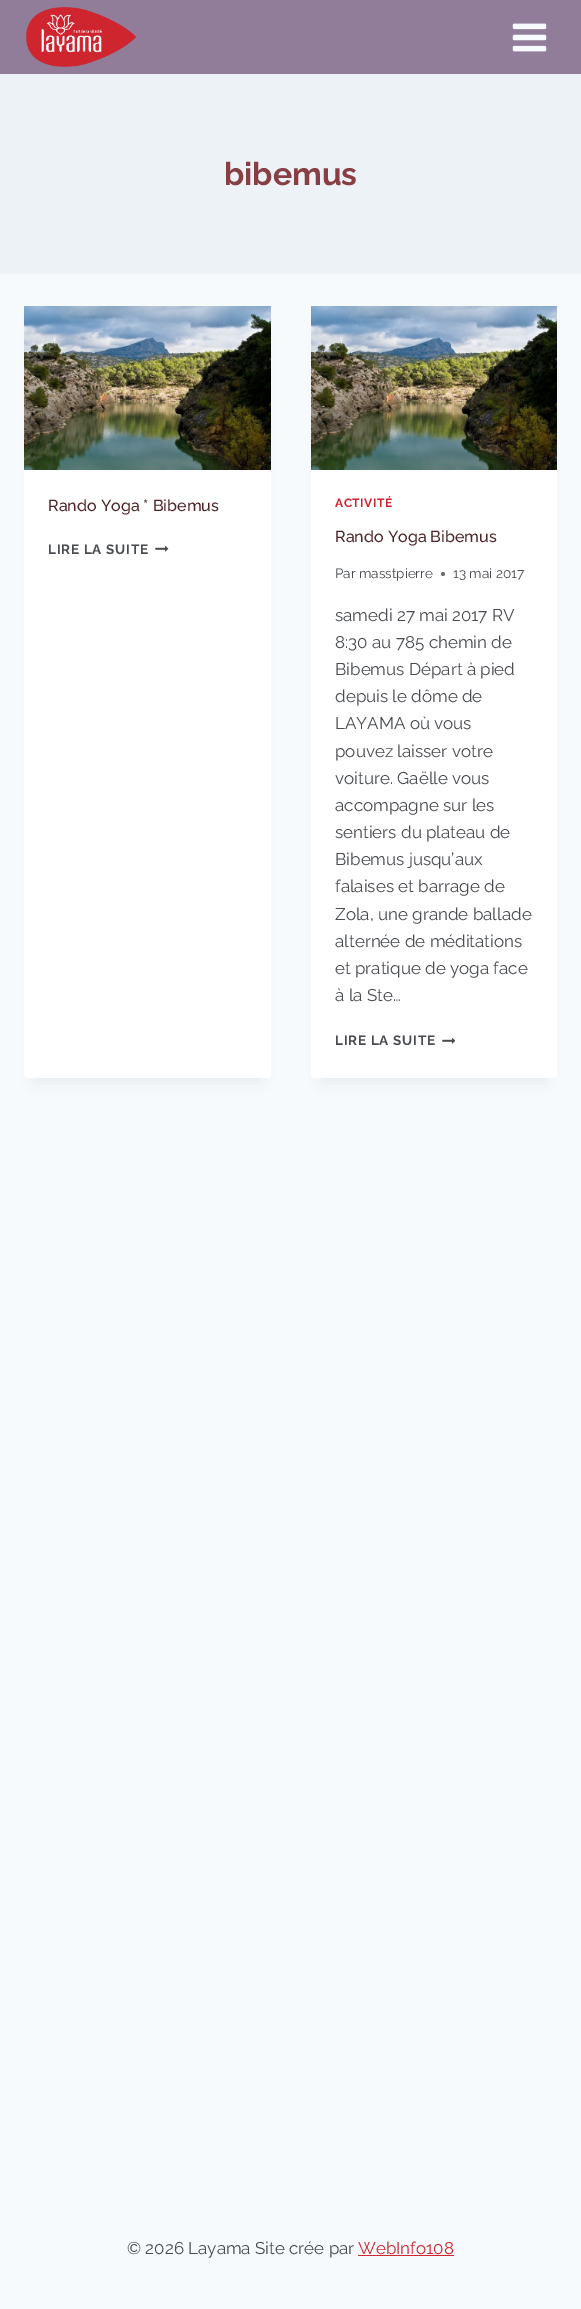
%!PS-Adobe-3.0
%%BoundingBox: 0 0 581 2309
%%LanguageLevel: 3
%%Pages: 1
%%EndComments
%%BeginProlog
/m { moveto } bind def
/f { fill } bind def
/fn { [ exch dup neg 0 0 3 -1 roll 0 0 ] selectfont } def
/tx { moveto show } def
/bx { rectfill } def
/al { dup .setfillconstantalpha .setstrokeconstantalpha } def
/ci { newpath 0 360 arc closepath } def
/rr { 5 dict begin { /r /h /w /y /x } { exch def } forall
  x r add y moveto x w add y 2 copy h add r arct x w add y h add x 1 index r arct
  x y h add x y r arct x y 2 copy exch w add exch r arct closepath end } def
/sh { 12 dict begin { /a /b /q /h /w /y /x } { exch def } forall gsave /was 0 def
  9 -2 -9 { dup b mul 4 div /e exch def 1 sub .425 mul 2.718 exch exp 1 add a .99 .min exch div /now exch def
    1 1 now sub 1 was sub div sub al /was now def
    w h .min e 2 mul add 0 gt { x e sub y e sub w e 2 mul add h e 2 mul add
      q e add b .6 mul add w h .min 2 div e add .min 0 .max rr fill } if } for grestore end } def
/im { 5 dict begin { /h /w /y /x /name } { exch def } forall
  gsave x y translate w h scale
  w h 8 [w 0 0 h 0 0] name (r) file false 3 colorimage grestore end } def
%%EndProlog
%%BeginSetup
<< /PageSize [581 2309] /PageUsesTransparency true >> setpagedevice
%%EndSetup
%%Page: 1 1
0 .pushpdf14devicefilter
0 2309 translate 1 -1 scale
4 setmiterlimit
0.969 0.98 0.988 setrgbcolor
0 0 581 2309 bx
0.569 0.49 0.604 setrgbcolor
0 0 581 74 bx
(image0.raw) 26 7 110 60 im
(image1.raw) 512 23 35 29 im
0.929 0.949 0.969 setrgbcolor
0 74 581 200 bx
/Raleway-Bold 32 fn
0.529 0.247 0.267 setrgbcolor
(bibemus) 224 185 tx
0 setgray
34 331 227 752 0 7.5 0.05 sh
1 setgray
24 306 247 772 4 rr f
(image2.raw) 24 306 247 164 im
/Raleway-Medium 16 fn
0.306 0.141 0.153 setrgbcolor
(Rando Yoga * Bibemus) 48 511 tx
/Raleway-Bold 13.5 fn
0.282 0.294 0.31 setrgbcolor
48 554 m 0.75 0 (LIRE LA SUITE) ashow
(image3.raw) 155 545 14 7 im
0 setgray
321 331 226 752 0 7.5 0.05 sh
1 setgray
311 306 246 772 4 rr f
(image4.raw) 311 306 246 164 im
/Raleway-Bold 12 fn
0.808 0.145 0.184 setrgbcolor
335 507 m 0.5 0 (ACTIVITÉ) ashow
/Raleway-Medium 16 fn
0.306 0.141 0.153 setrgbcolor
(Rando Yoga Bibemus) 335 542 tx
/Raleway-Regular 13.5 fn
0.282 0.294 0.31 setrgbcolor
(Par masstpierre) 335 578 tx
0.427 0.435 0.447 setrgbcolor
443 574 2 ci f
0.282 0.294 0.31 setrgbcolor
(13 mai 2017) 453 578 tx
/Raleway-Regular 17 fn
(samedi 27 mai 2017 RV) 335 621 tx
(8:30 au 785 chemin de) 335 648 tx
(Bibemus Départ à pied) 335 675 tx
(depuis le dôme de) 335 702 tx
(LAYAMA où vous) 335 729 tx
(pouvez laisser votre) 335 757 tx
(voiture. Gaëlle vous) 335 784 tx
(accompagne sur les) 335 811 tx
(sentiers du plateau de) 335 838 tx
(Bibemus jusqu’aux) 335 865 tx
(falaises et barrage de) 335 892 tx
(Zola, une grande ballade) 335 920 tx
(alternée de méditations) 335 947 tx
(et pratique de yoga face) 335 974 tx
(à la Ste…) 335 1001 tx
/Raleway-Bold 13.5 fn
335 1045 m 0.75 0 (LIRE LA SUITE) ashow
(image5.raw) 442 1037 13 7 im
/Raleway-Regular 17 fn
(© 2026 Layama Site crée par) 127 2254 tx
0.808 0.145 0.184 setrgbcolor
(WebInfo108) 358 2254 tx
358 2255 96 1 bx
.poppdf14devicefilter showpage
%%EOF
